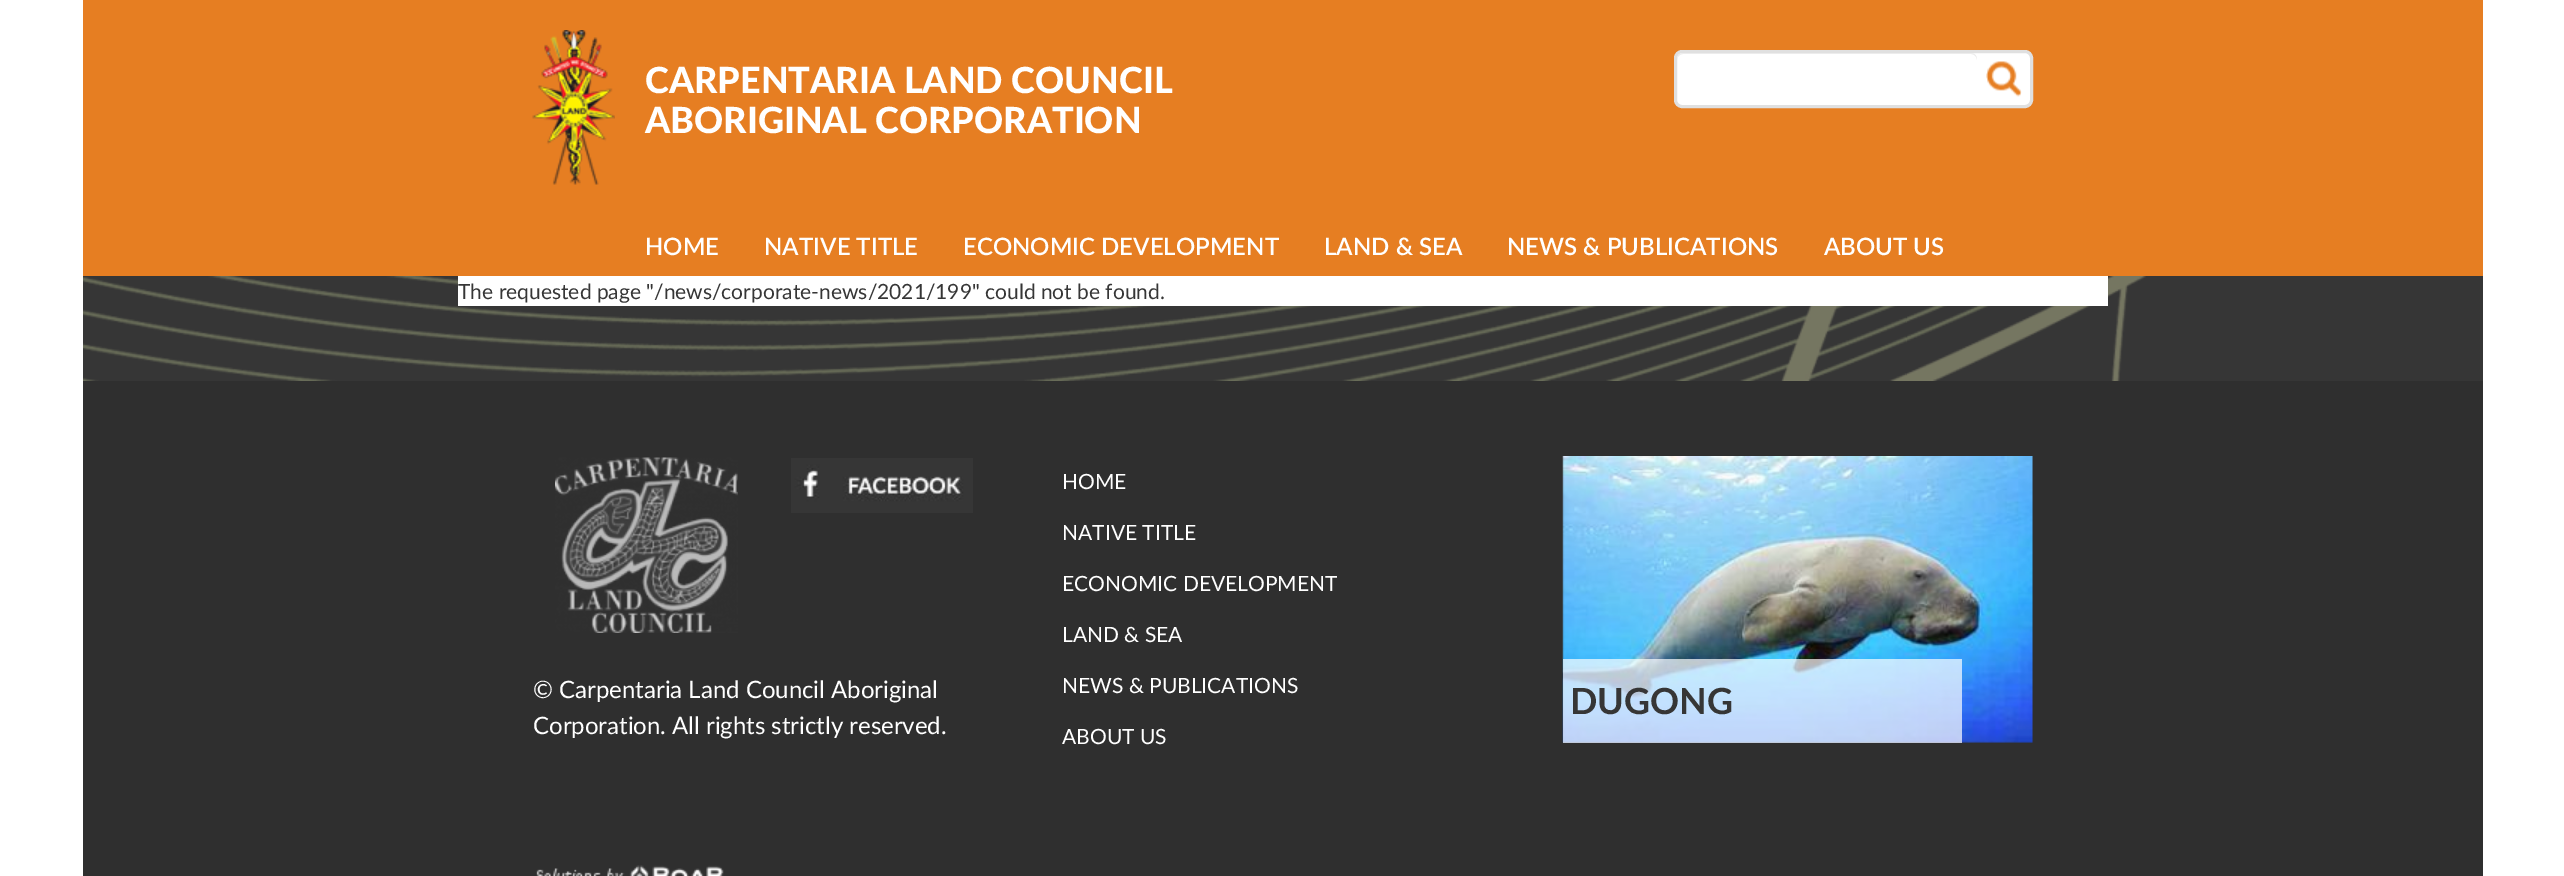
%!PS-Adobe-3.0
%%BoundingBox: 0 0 2564 876
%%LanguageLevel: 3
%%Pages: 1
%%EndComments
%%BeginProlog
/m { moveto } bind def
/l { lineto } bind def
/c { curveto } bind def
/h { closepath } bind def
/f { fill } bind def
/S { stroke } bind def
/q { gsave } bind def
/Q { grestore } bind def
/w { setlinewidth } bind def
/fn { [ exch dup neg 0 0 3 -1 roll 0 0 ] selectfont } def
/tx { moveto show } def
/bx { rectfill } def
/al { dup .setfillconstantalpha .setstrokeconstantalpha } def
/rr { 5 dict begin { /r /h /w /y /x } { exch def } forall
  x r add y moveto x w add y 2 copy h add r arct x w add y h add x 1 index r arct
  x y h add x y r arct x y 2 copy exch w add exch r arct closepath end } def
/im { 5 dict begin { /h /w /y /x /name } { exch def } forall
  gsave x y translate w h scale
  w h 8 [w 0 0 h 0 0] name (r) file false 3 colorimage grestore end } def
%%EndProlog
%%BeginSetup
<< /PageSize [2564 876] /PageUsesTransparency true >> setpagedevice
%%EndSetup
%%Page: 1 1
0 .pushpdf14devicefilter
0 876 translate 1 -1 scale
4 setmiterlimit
1 setgray
0 0 2564 876 bx
0.902 0.494 0.133 setrgbcolor
83 0 2400 276 bx
(image0.raw) 532 30 83 155 im
/Lato-Black 36 fn
1 setgray
(CARPENTARIA LAND COUNCIL) 645 93 tx
(ABORIGINAL CORPORATION) 645 133 tx
1675.5 51.5 356 55 6.5 rr q f Q
0.878 setgray
3 w
S
0.925 setgray
1683 54 m 1971 54 l 1974 54 1977 57 1977 60 c 1977 56 1975 53 1971 53 c 1683 53 l 1679 53 1677 56 1677 60 c 1677 57 1680 54 1683 54 c h f
(image1.raw) 1986 61 36 36 im
/Lato-SemiBold 24 fn
1 setgray
(HOME) 645 255 tx
(NATIVE TITLE) 764 255 tx
(ECONOMIC DEVELOPMENT) 963 255 tx
(LAND & SEA) 1324 255 tx
(NEWS & PUBLICATIONS) 1507 255 tx
(ABOUT US) 1824 255 tx
0.212 setgray
83 276 2400 105 bx
(image2.raw) 83 276 2063 105 im
1 setgray
458 276 1650 30 bx
/Lato-Regular 21 fn
0.212 setgray
(The requested page "/news/corporate-news/2021/199" could not be found.) 458 299 tx
0.184 setgray
83 381 2400 495 bx
(image3.raw) 555 457 183 176 im
(image4.raw) 791 458 182 55 im
/Lato-Regular 24 fn
1 setgray
(© Carpentaria Land Council Aboriginal) 533 698 tx
(Corporation. All rights strictly reserved.) 533 734 tx
(image5.raw) 536 865 188 11 im
/Lato-Regular 21 fn
(HOME) 1062 489 tx
(NATIVE TITLE) 1062 540 tx
(ECONOMIC DEVELOPMENT) 1062 591 tx
(LAND & SEA) 1062 642 tx
(NEWS & PUBLICATIONS) 1062 693 tx
(ABOUT US) 1062 744 tx
(image6.raw) 1562 456 471 287 im
0.7 al
1563 659 399 84 bx
/Lato-Bold 36 fn
1 al
0.212 setgray
(DUGONG) 1570 714 tx
.poppdf14devicefilter showpage
%%EOF
